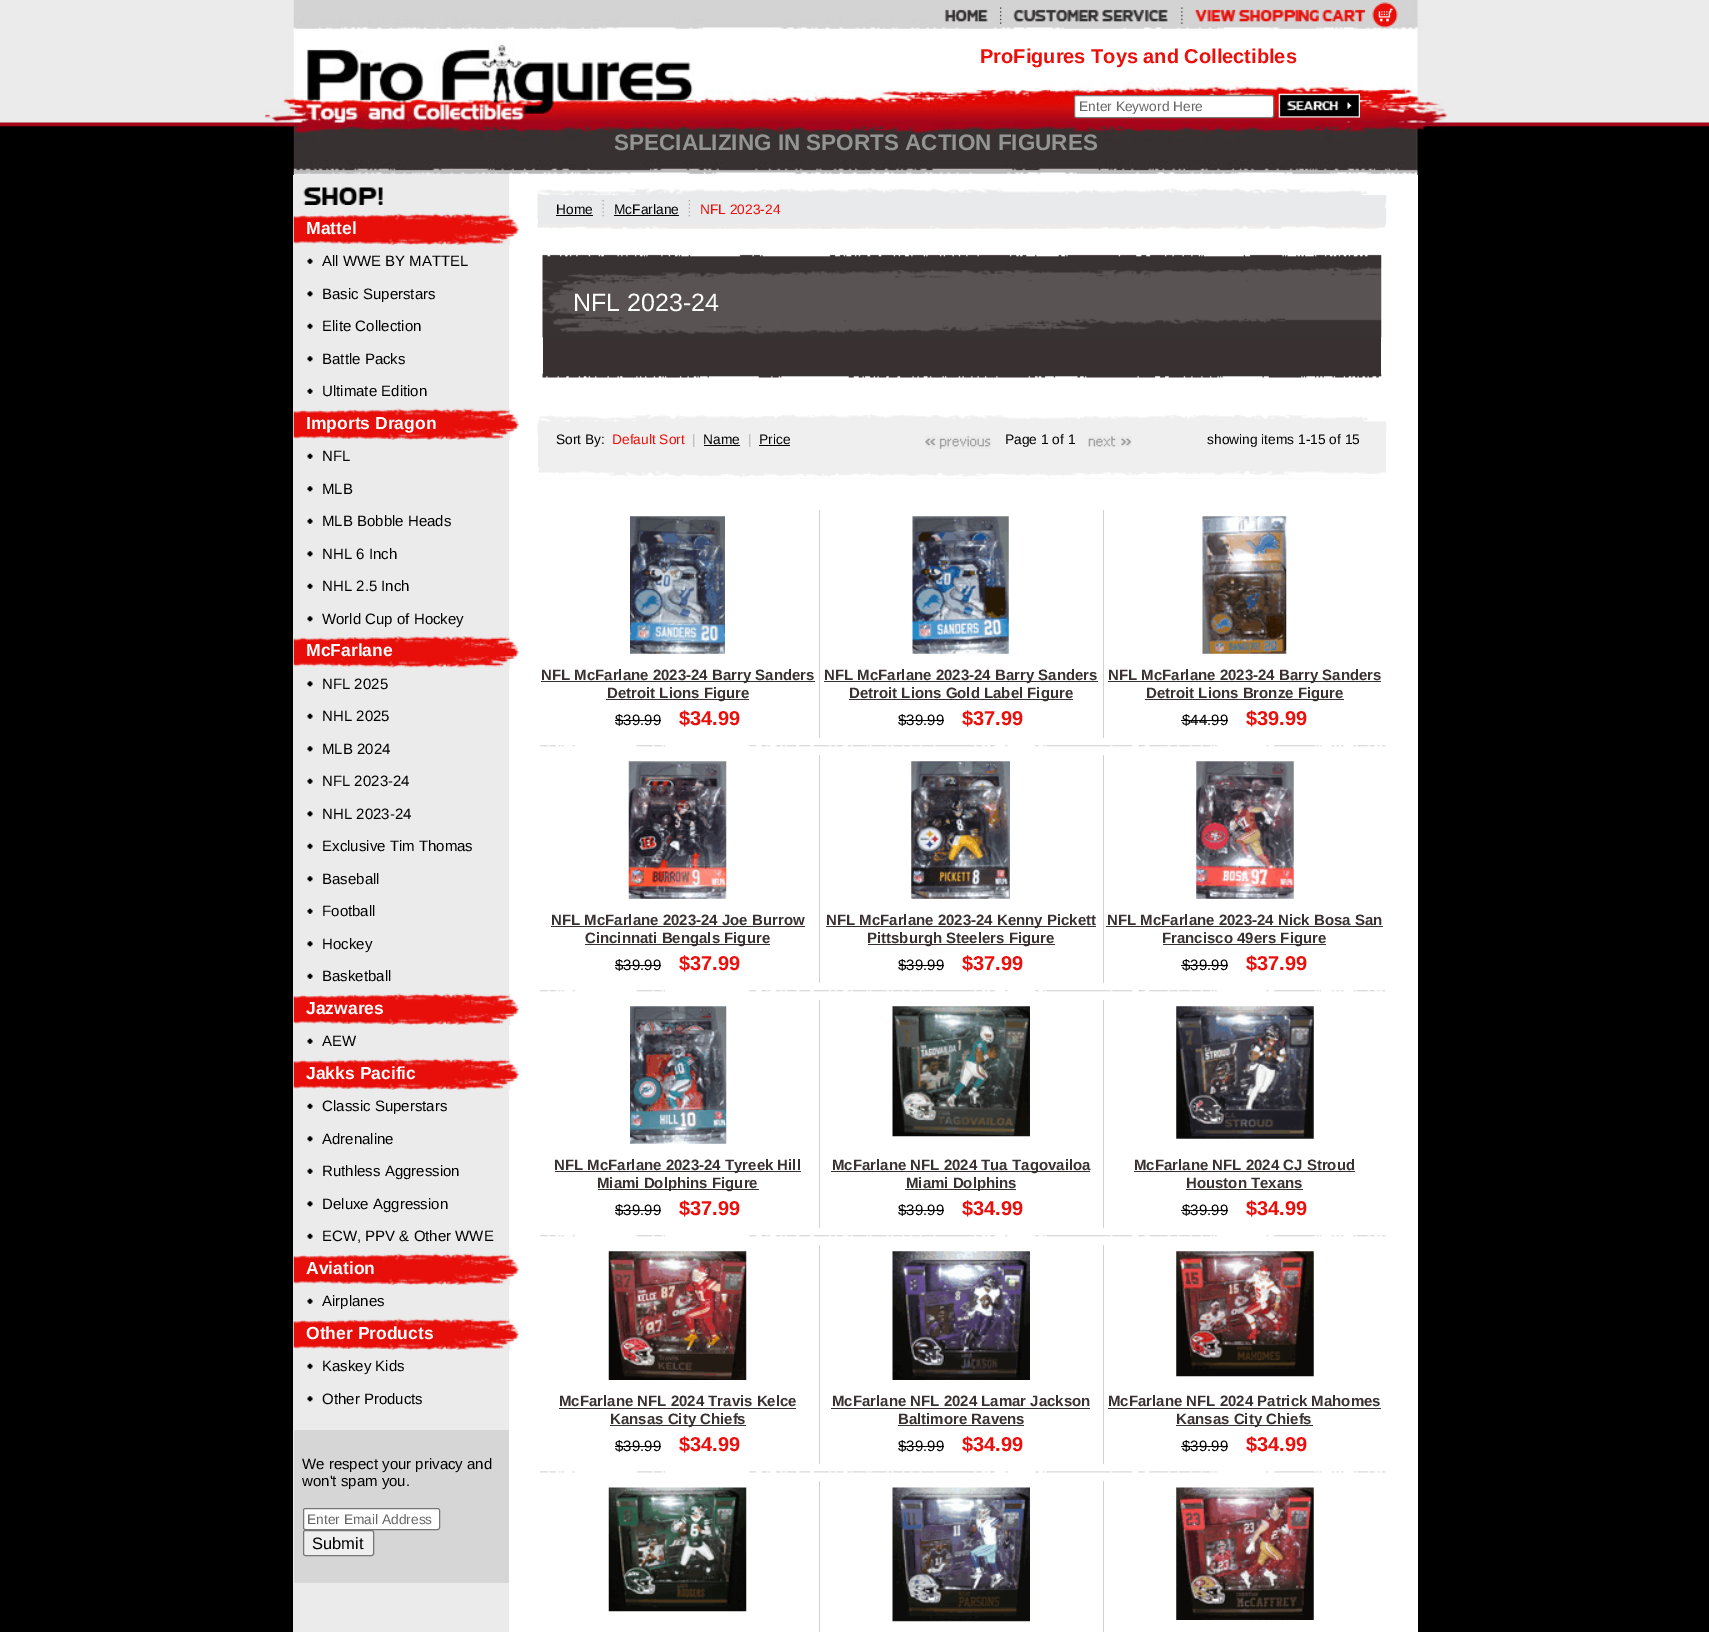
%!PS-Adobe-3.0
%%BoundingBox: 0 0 1709 1632
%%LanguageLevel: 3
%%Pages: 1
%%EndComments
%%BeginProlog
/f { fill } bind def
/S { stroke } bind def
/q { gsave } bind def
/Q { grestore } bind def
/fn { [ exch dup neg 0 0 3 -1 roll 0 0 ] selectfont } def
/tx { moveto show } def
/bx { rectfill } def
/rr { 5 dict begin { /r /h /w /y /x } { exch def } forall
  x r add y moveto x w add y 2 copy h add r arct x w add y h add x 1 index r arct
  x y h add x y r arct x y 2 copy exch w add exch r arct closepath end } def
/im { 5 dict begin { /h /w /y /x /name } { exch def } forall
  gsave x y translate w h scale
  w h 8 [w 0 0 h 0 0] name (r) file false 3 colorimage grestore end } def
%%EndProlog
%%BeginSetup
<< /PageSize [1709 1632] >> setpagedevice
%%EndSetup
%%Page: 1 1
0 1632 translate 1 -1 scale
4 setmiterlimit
0 setgray
0 0 1709 1632 bx
(image0.raw) 0 0 1709 127 im
(image1.raw) 263 0 1185 175 im
(image2.raw) 944 9 44 13 im
(image3.raw) 1000 7 2 17 im
(image4.raw) 1013 9 155 13 im
(image5.raw) 1181 7 2 17 im
(image6.raw) 1194 9 172 13 im
(image7.raw) 1372 2 26 26 im
/LiberationSans-Bold 20 fn
0.918 0.059 0.043 setrgbcolor
(ProFigures Toys and Collectibles) 980 63 tx
1 setgray
1074.5 95.5 199 22 2 rr q f Q
0.463 setgray
S
/LiberationSans-Regular 13.75 fn
0.4 setgray
(Enter Keyword Here) 1079 111 tx
(image8.raw) 1278 93 82 25 im
/LiberationSans-Bold 22.5 fn
0.58 setgray
(SPECIALIZING IN SPORTS ACTION FIGURES) 614 150 tx
1 setgray
509 175 909 1457 bx
0.922 setgray
293 175 216 1457 bx
(image9.raw) 303 187 80 18 im
(image10.raw) 293 213 226 32 im
/LiberationSans-Bold 17.5 fn
1 setgray
(Mattel) 306 234 tx
(image11.raw) 307 258 6 6 im
/LiberationSans-Regular 15 fn
0 setgray
(All WWE BY MATTEL) 322 266 tx
(image12.raw) 307 291 6 6 im
(Basic Superstars) 322 299 tx
(image11.raw) 307 323 6 6 im
(Elite Collection) 322 331 tx
(image12.raw) 307 356 6 6 im
(Battle Packs) 322 364 tx
(image11.raw) 307 388 6 6 im
(Ultimate Edition) 322 396 tx
(image10.raw) 293 408 226 32 im
/LiberationSans-Bold 17.5 fn
1 setgray
(Imports Dragon) 306 429 tx
(image11.raw) 307 453 6 6 im
/LiberationSans-Regular 15 fn
0 setgray
(NFL) 322 461 tx
(image12.raw) 307 486 6 6 im
(MLB) 322 494 tx
(image11.raw) 307 518 6 6 im
(MLB Bobble Heads) 322 526 tx
(image12.raw) 307 551 6 6 im
(NHL 6 Inch) 322 559 tx
(image11.raw) 307 583 6 6 im
(NHL 2.5 Inch) 322 591 tx
(image12.raw) 307 616 6 6 im
(World Cup of Hockey) 322 624 tx
(image13.raw) 293 636 226 32 im
/LiberationSans-Bold 17.5 fn
1 setgray
(McFarlane) 306 656 tx
(image12.raw) 307 681 6 6 im
/LiberationSans-Regular 15 fn
0 setgray
(NFL 2025) 322 689 tx
(image11.raw) 307 713 6 6 im
(NHL 2025) 322 721 tx
(image12.raw) 307 746 6 6 im
(MLB 2024) 322 754 tx
(image11.raw) 307 778 6 6 im
(NFL 2023-24) 322 786 tx
(image12.raw) 307 811 6 6 im
(NHL 2023-24) 322 819 tx
(image11.raw) 307 843 6 6 im
(Exclusive Tim Thomas) 322 851 tx
(image12.raw) 307 876 6 6 im
(Baseball) 322 884 tx
(image11.raw) 307 908 6 6 im
(Football) 322 916 tx
(image12.raw) 307 941 6 6 im
(Hockey) 322 949 tx
(image11.raw) 307 973 6 6 im
(Basketball) 322 981 tx
(image10.raw) 293 993 226 32 im
/LiberationSans-Bold 17.5 fn
1 setgray
(Jazwares) 306 1014 tx
(image11.raw) 307 1038 6 6 im
/LiberationSans-Regular 15 fn
0 setgray
(AEW) 322 1046 tx
(image10.raw) 293 1058 226 32 im
/LiberationSans-Bold 17.5 fn
1 setgray
(Jakks Pacific) 306 1079 tx
(image11.raw) 307 1103 6 6 im
/LiberationSans-Regular 15 fn
0 setgray
(Classic Superstars) 322 1111 tx
(image12.raw) 307 1136 6 6 im
(Adrenaline) 322 1144 tx
(image11.raw) 307 1168 6 6 im
(Ruthless Aggression) 322 1176 tx
(image12.raw) 307 1201 6 6 im
(Deluxe Aggression) 322 1209 tx
(image11.raw) 307 1233 6 6 im
(ECW, PPV & Other WWE) 322 1241 tx
(image10.raw) 293 1253 226 32 im
/LiberationSans-Bold 17.5 fn
1 setgray
(Aviation) 306 1274 tx
(image11.raw) 307 1298 6 6 im
/LiberationSans-Regular 15 fn
0 setgray
(Airplanes) 322 1306 tx
(image10.raw) 293 1318 226 32 im
/LiberationSans-Bold 17.5 fn
1 setgray
(Other Products) 306 1339 tx
(image11.raw) 307 1363 6 6 im
/LiberationSans-Regular 15 fn
0 setgray
(Kaskey Kids) 322 1371 tx
(image12.raw) 307 1396 6 6 im
(Other Products) 322 1404 tx
0.839 setgray
294 1430 215 153 bx
0 setgray
(We respect your privacy and) 302 1469 tx
(won't spam you.) 302 1486 tx
1 setgray
303.5 1508.5 136 21 2 rr q f Q
0.463 setgray
S
/LiberationSans-Regular 13.75 fn
0.4 setgray
(Enter Email Address) 307 1524 tx
0.937 setgray
303.5 1530.5 70 25 2 rr q f Q
0.463 setgray
S
/LiberationSans-Regular 16.5 fn
0 setgray
(Submit) 312 1549 tx
0.914 0.918 0.925 setrgbcolor
538 218 848 6 bx
(image14.raw) 537 187 850 32 im
/LiberationSans-Regular 13.75 fn
0 setgray
(Home) 556 214 tx
556 215 37 1 bx
(image15.raw) 602 200 2 17 im
(McFarlane) 614 214 tx
614 215 65 1 bx
(image16.raw) 688 200 2 17 im
0.918 0.059 0.043 setrgbcolor
(NFL 2023-24) 700 214 tx
(image17.raw) 537 224 849 5 im
0.224 0.188 0.192 setrgbcolor
543 337 838 37 bx
(image18.raw) 542 254 840 84 im
/LiberationSans-Regular 25 fn
1 setgray
(NFL 2023-24) 573 311 tx
(image19.raw) 542 373 840 7 im
0.937 setgray
538 435 848 44 bx
(image20.raw) 537 413 850 22 im
/LiberationSans-Regular 13.75 fn
0 setgray
(Sort By:) 556 444 tx
0.918 0.059 0.043 setrgbcolor
(Default Sort) 612 444 tx
0.686 setgray
(|) 692 444 tx
0 setgray
(Name) 703 444 tx
704 445 36 1 bx
0.686 setgray
(|) 748 444 tx
0 setgray
(Price) 759 444 tx
759 445 31 1 bx
(image21.raw) 925 436 66 13 im
(Page 1 of 1) 1005 444 tx
(image22.raw) 1088 436 44 11 im
(showing items 1-15 of 15) 1207 444 tx
(image23.raw) 538 467 849 12 im
(image24.raw) 630 516 95 138 im
0.824 setgray
819 510 1 228 bx
(image25.raw) 912 516 97 138 im
1103 510 1 228 bx
(image26.raw) 1202 516 85 138 im
0.224 0.188 0.192 setrgbcolor
541 681 274 1 bx
/LiberationSans-Bold 15 fn
(NFL McFarlane 2023-24 Barry Sanders) 541 680 tx
606 699 143 1 bx
(Detroit Lions Figure) 607 698 tx
/LiberationSans-Regular 15 fn
0 setgray
($39.99) 615 725 tx
615 720 46 1 bx
/LiberationSans-Bold 20 fn
0.918 0.059 0.043 setrgbcolor
($34.99) 679 725 tx
0.224 0.188 0.192 setrgbcolor
824 681 274 1 bx
/LiberationSans-Bold 15 fn
(NFL McFarlane 2023-24 Barry Sanders) 824 680 tx
849 699 224 1 bx
(Detroit Lions Gold Label Figure) 849 698 tx
/LiberationSans-Regular 15 fn
0 setgray
($39.99) 898 725 tx
899 720 45 1 bx
/LiberationSans-Bold 20 fn
0.918 0.059 0.043 setrgbcolor
($37.99) 962 725 tx
0.224 0.188 0.192 setrgbcolor
1108 681 273 1 bx
/LiberationSans-Bold 15 fn
(NFL McFarlane 2023-24 Barry Sanders) 1108 680 tx
1145 699 199 1 bx
(Detroit Lions Bronze Figure) 1146 698 tx
/LiberationSans-Regular 15 fn
0 setgray
($44.99) 1182 725 tx
1181 720 47 1 bx
/LiberationSans-Bold 20 fn
0.918 0.059 0.043 setrgbcolor
($39.99) 1246 725 tx
(image27.raw) 540 745 846 2 im
(image28.raw) 628 761 99 138 im
0.824 setgray
819 755 1 228 bx
(image29.raw) 911 761 99 138 im
1103 755 1 228 bx
(image30.raw) 1196 761 98 138 im
/LiberationSans-Bold 15 fn
0.224 0.188 0.192 setrgbcolor
(NFL McFarlane 2023-24 Joe Burrow) 551 925 tx
551 926 254 1 bx
585 944 185 1 bx
(Cincinnati Bengals Figure) 585 943 tx
/LiberationSans-Regular 15 fn
0 setgray
($39.99) 615 970 tx
615 965 46 1 bx
/LiberationSans-Bold 20 fn
0.918 0.059 0.043 setrgbcolor
($37.99) 679 970 tx
0.224 0.188 0.192 setrgbcolor
826 926 270 1 bx
/LiberationSans-Bold 15 fn
(NFL McFarlane 2023-24 Kenny Pickett) 826 925 tx
868 944 187 1 bx
(Pittsburgh Steelers Figure) 867 943 tx
/LiberationSans-Regular 15 fn
0 setgray
($39.99) 898 970 tx
899 965 45 1 bx
/LiberationSans-Bold 20 fn
0.918 0.059 0.043 setrgbcolor
($37.99) 962 970 tx
/LiberationSans-Bold 15 fn
0.224 0.188 0.192 setrgbcolor
(NFL McFarlane 2023-24 Nick Bosa San) 1107 925 tx
1106 926 277 1 bx
1163 944 163 1 bx
(Francisco 49ers Figure) 1162 943 tx
/LiberationSans-Regular 15 fn
0 setgray
($39.99) 1182 970 tx
1181 965 47 1 bx
/LiberationSans-Bold 20 fn
0.918 0.059 0.043 setrgbcolor
($37.99) 1246 970 tx
(image27.raw) 540 990 846 2 im
(image31.raw) 630 1006 97 138 im
0.824 setgray
819 1000 1 228 bx
(image32.raw) 892 1006 138 131 im
1103 1000 1 228 bx
(image33.raw) 1176 1006 138 133 im
0.224 0.188 0.192 setrgbcolor
555 1171 246 1 bx
/LiberationSans-Bold 15 fn
(NFL McFarlane 2023-24 Tyreek Hill) 554 1170 tx
598 1189 161 1 bx
(Miami Dolphins Figure) 597 1188 tx
/LiberationSans-Regular 15 fn
0 setgray
($39.99) 615 1215 tx
615 1210 46 1 bx
/LiberationSans-Bold 20 fn
0.918 0.059 0.043 setrgbcolor
($37.99) 679 1215 tx
0.224 0.188 0.192 setrgbcolor
831 1171 259 1 bx
/LiberationSans-Bold 15 fn
(McFarlane NFL 2024 Tua Tagovailoa) 832 1170 tx
905 1189 111 1 bx
(Miami Dolphins) 906 1188 tx
/LiberationSans-Regular 15 fn
0 setgray
($39.99) 898 1215 tx
899 1210 45 1 bx
/LiberationSans-Bold 20 fn
0.918 0.059 0.043 setrgbcolor
($34.99) 962 1215 tx
/LiberationSans-Bold 15 fn
0.224 0.188 0.192 setrgbcolor
(McFarlane NFL 2024 CJ Stroud) 1134 1170 tx
1134 1171 221 1 bx
(Houston Texans) 1186 1188 tx
1186 1189 117 1 bx
/LiberationSans-Regular 15 fn
0 setgray
($39.99) 1182 1215 tx
1181 1210 47 1 bx
/LiberationSans-Bold 20 fn
0.918 0.059 0.043 setrgbcolor
($34.99) 1246 1215 tx
(image27.raw) 540 1235 846 2 im
(image34.raw) 608 1251 139 129 im
0.824 setgray
819 1245 1 219 bx
(image35.raw) 892 1251 138 129 im
1103 1245 1 219 bx
(image36.raw) 1176 1251 138 126 im
/LiberationSans-Bold 15 fn
0.224 0.188 0.192 setrgbcolor
(McFarlane NFL 2024 Travis Kelce) 559 1406 tx
559 1408 237 1 bx
610 1425 136 1 bx
(Kansas City Chiefs) 610 1424 tx
/LiberationSans-Regular 15 fn
0 setgray
($39.99) 615 1451 tx
615 1446 46 1 bx
/LiberationSans-Bold 20 fn
0.918 0.059 0.043 setrgbcolor
($34.99) 679 1451 tx
/LiberationSans-Bold 15 fn
0.224 0.188 0.192 setrgbcolor
(McFarlane NFL 2024 Lamar Jackson) 832 1406 tx
831 1408 259 1 bx
(Baltimore Ravens) 898 1424 tx
898 1425 126 1 bx
/LiberationSans-Regular 15 fn
0 setgray
($39.99) 898 1451 tx
899 1446 45 1 bx
/LiberationSans-Bold 20 fn
0.918 0.059 0.043 setrgbcolor
($34.99) 962 1451 tx
/LiberationSans-Bold 15 fn
0.224 0.188 0.192 setrgbcolor
(McFarlane NFL 2024 Patrick Mahomes) 1108 1406 tx
1108 1408 273 1 bx
1176 1425 137 1 bx
(Kansas City Chiefs) 1176 1424 tx
/LiberationSans-Regular 15 fn
0 setgray
($39.99) 1182 1451 tx
1181 1446 47 1 bx
/LiberationSans-Bold 20 fn
0.918 0.059 0.043 setrgbcolor
($34.99) 1246 1451 tx
(image37.raw) 540 1471 846 2 im
(image38.raw) 608 1487 139 125 im
0.824 setgray
819 1481 1 151 bx
(image39.raw) 892 1487 138 135 im
1103 1481 1 151 bx
(image40.raw) 1176 1487 138 133 im
showpage
%%EOF
